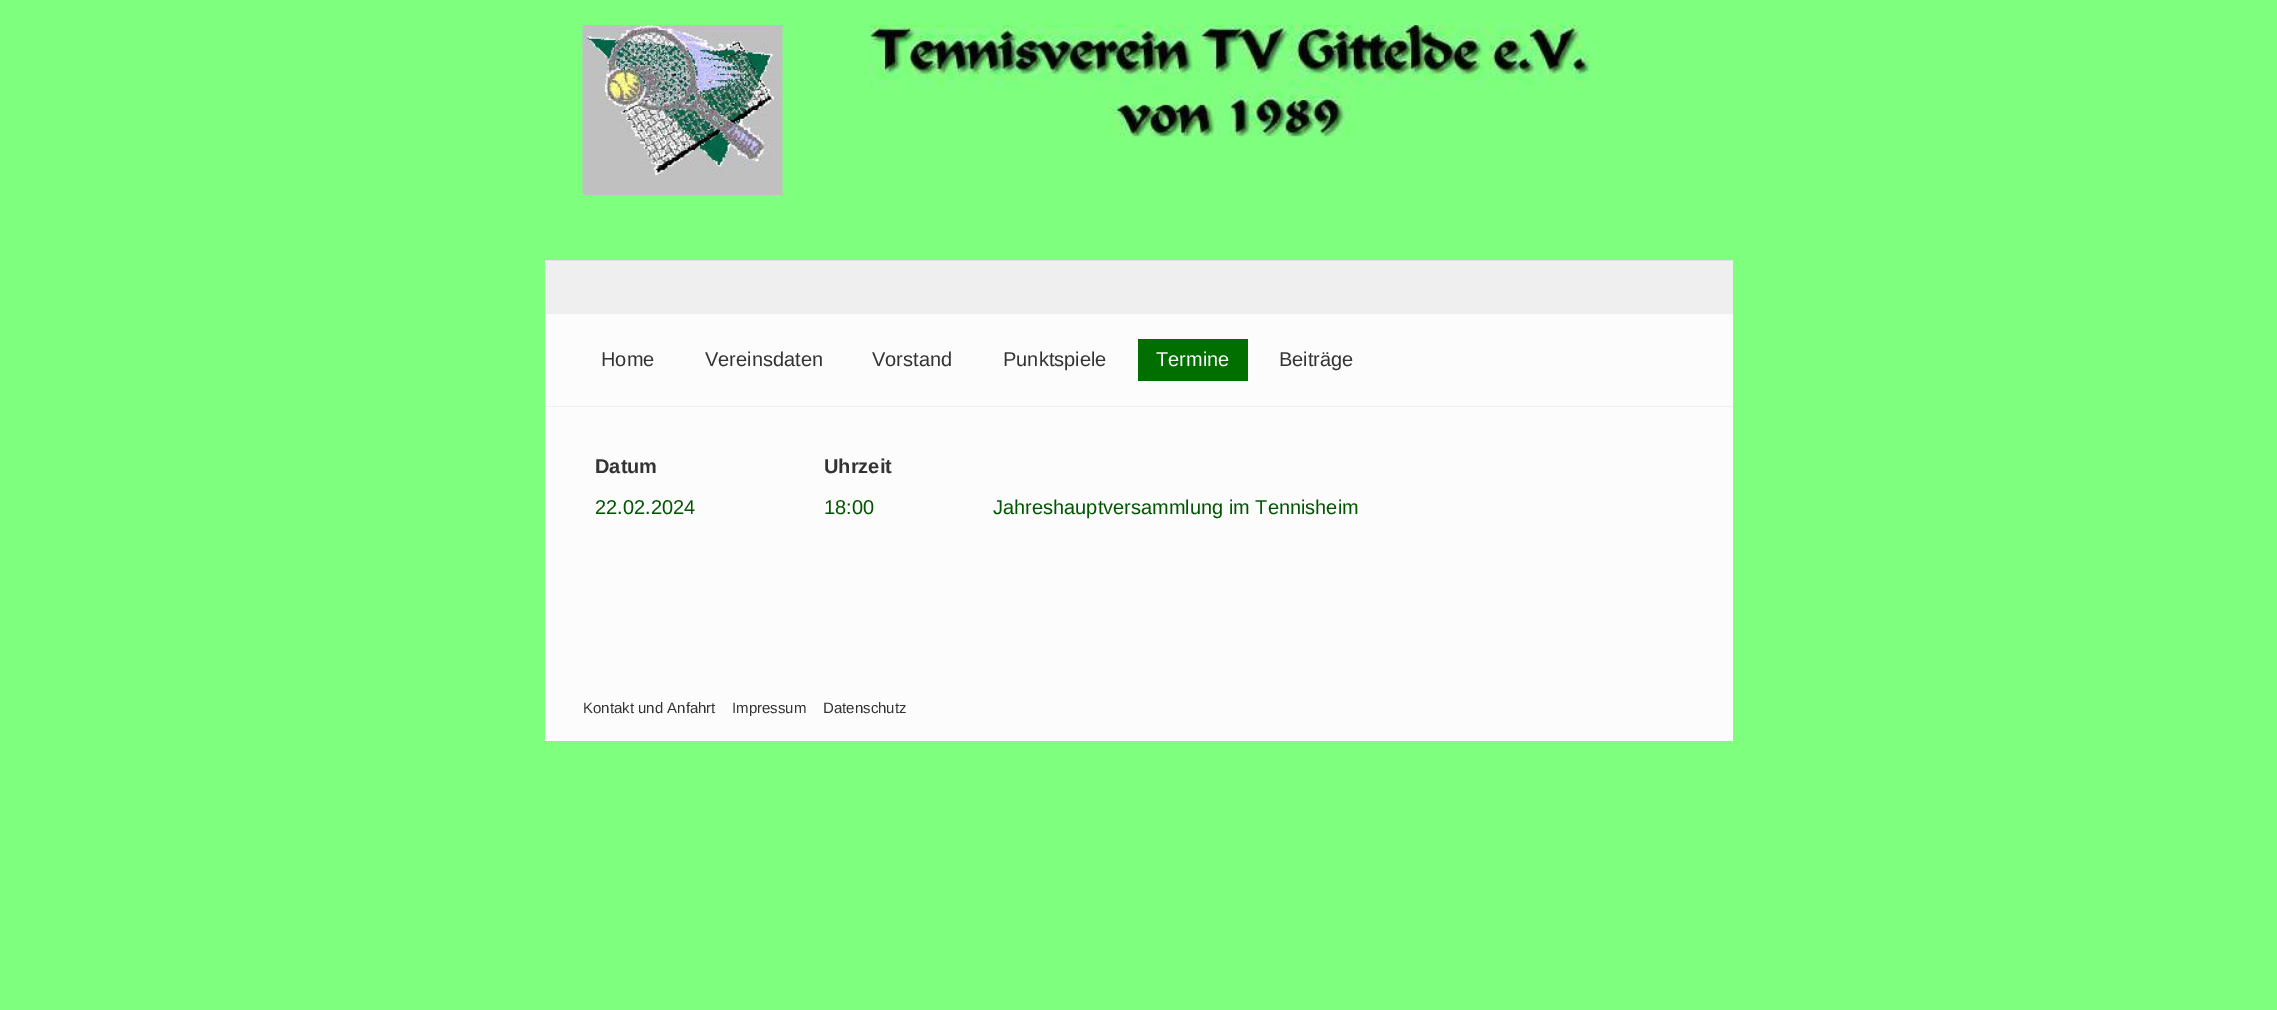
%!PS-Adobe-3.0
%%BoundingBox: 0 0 2277 1010
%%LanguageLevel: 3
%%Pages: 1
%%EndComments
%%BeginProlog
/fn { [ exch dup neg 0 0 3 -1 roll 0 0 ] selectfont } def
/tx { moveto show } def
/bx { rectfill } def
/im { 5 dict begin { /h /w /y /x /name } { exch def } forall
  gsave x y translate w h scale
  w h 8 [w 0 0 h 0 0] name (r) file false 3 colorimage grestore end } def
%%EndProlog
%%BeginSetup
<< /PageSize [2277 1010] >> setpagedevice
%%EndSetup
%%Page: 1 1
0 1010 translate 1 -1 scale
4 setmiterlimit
0.494 1 0.494 setrgbcolor
0 0 2277 1010 bx
0.89 setgray
545 260 1188 1 bx
(image0.raw) 582 25 201 170 im
(image1.raw) 870 25 721 112 im
0.937 setgray
545 261 1188 53 bx
0.988 setgray
545 314 1188 427 bx
0.937 setgray
545 406 1188 1 bx
/LiberationSans-Regular 20 fn
0.2 setgray
(Home) 601 366 tx
(Vereinsdaten) 705 366 tx
(Vorstand) 872 366 tx
(Punktspiele) 1003 366 tx
0.004 0.431 0 setrgbcolor
1138 339 110 42 bx
1 setgray
(Termine) 1156 366 tx
0.2 setgray
(Beiträge) 1279 366 tx
/LiberationSans-Bold 20 fn
(Datum) 595 473 tx
(Uhrzeit) 824 473 tx
/LiberationSans-Regular 20 fn
0.004 0.333 0 setrgbcolor
(22.02.2024) 595 514 tx
(18:00) 824 514 tx
(Jahreshauptversammlung im Tennisheim) 993 514 tx
/LiberationSans-Regular 15 fn
0.2 setgray
(Kontakt und Anfahrt) 583 713 tx
(Impressum) 732 713 tx
(Datenschutz) 823 713 tx
showpage
%%EOF
